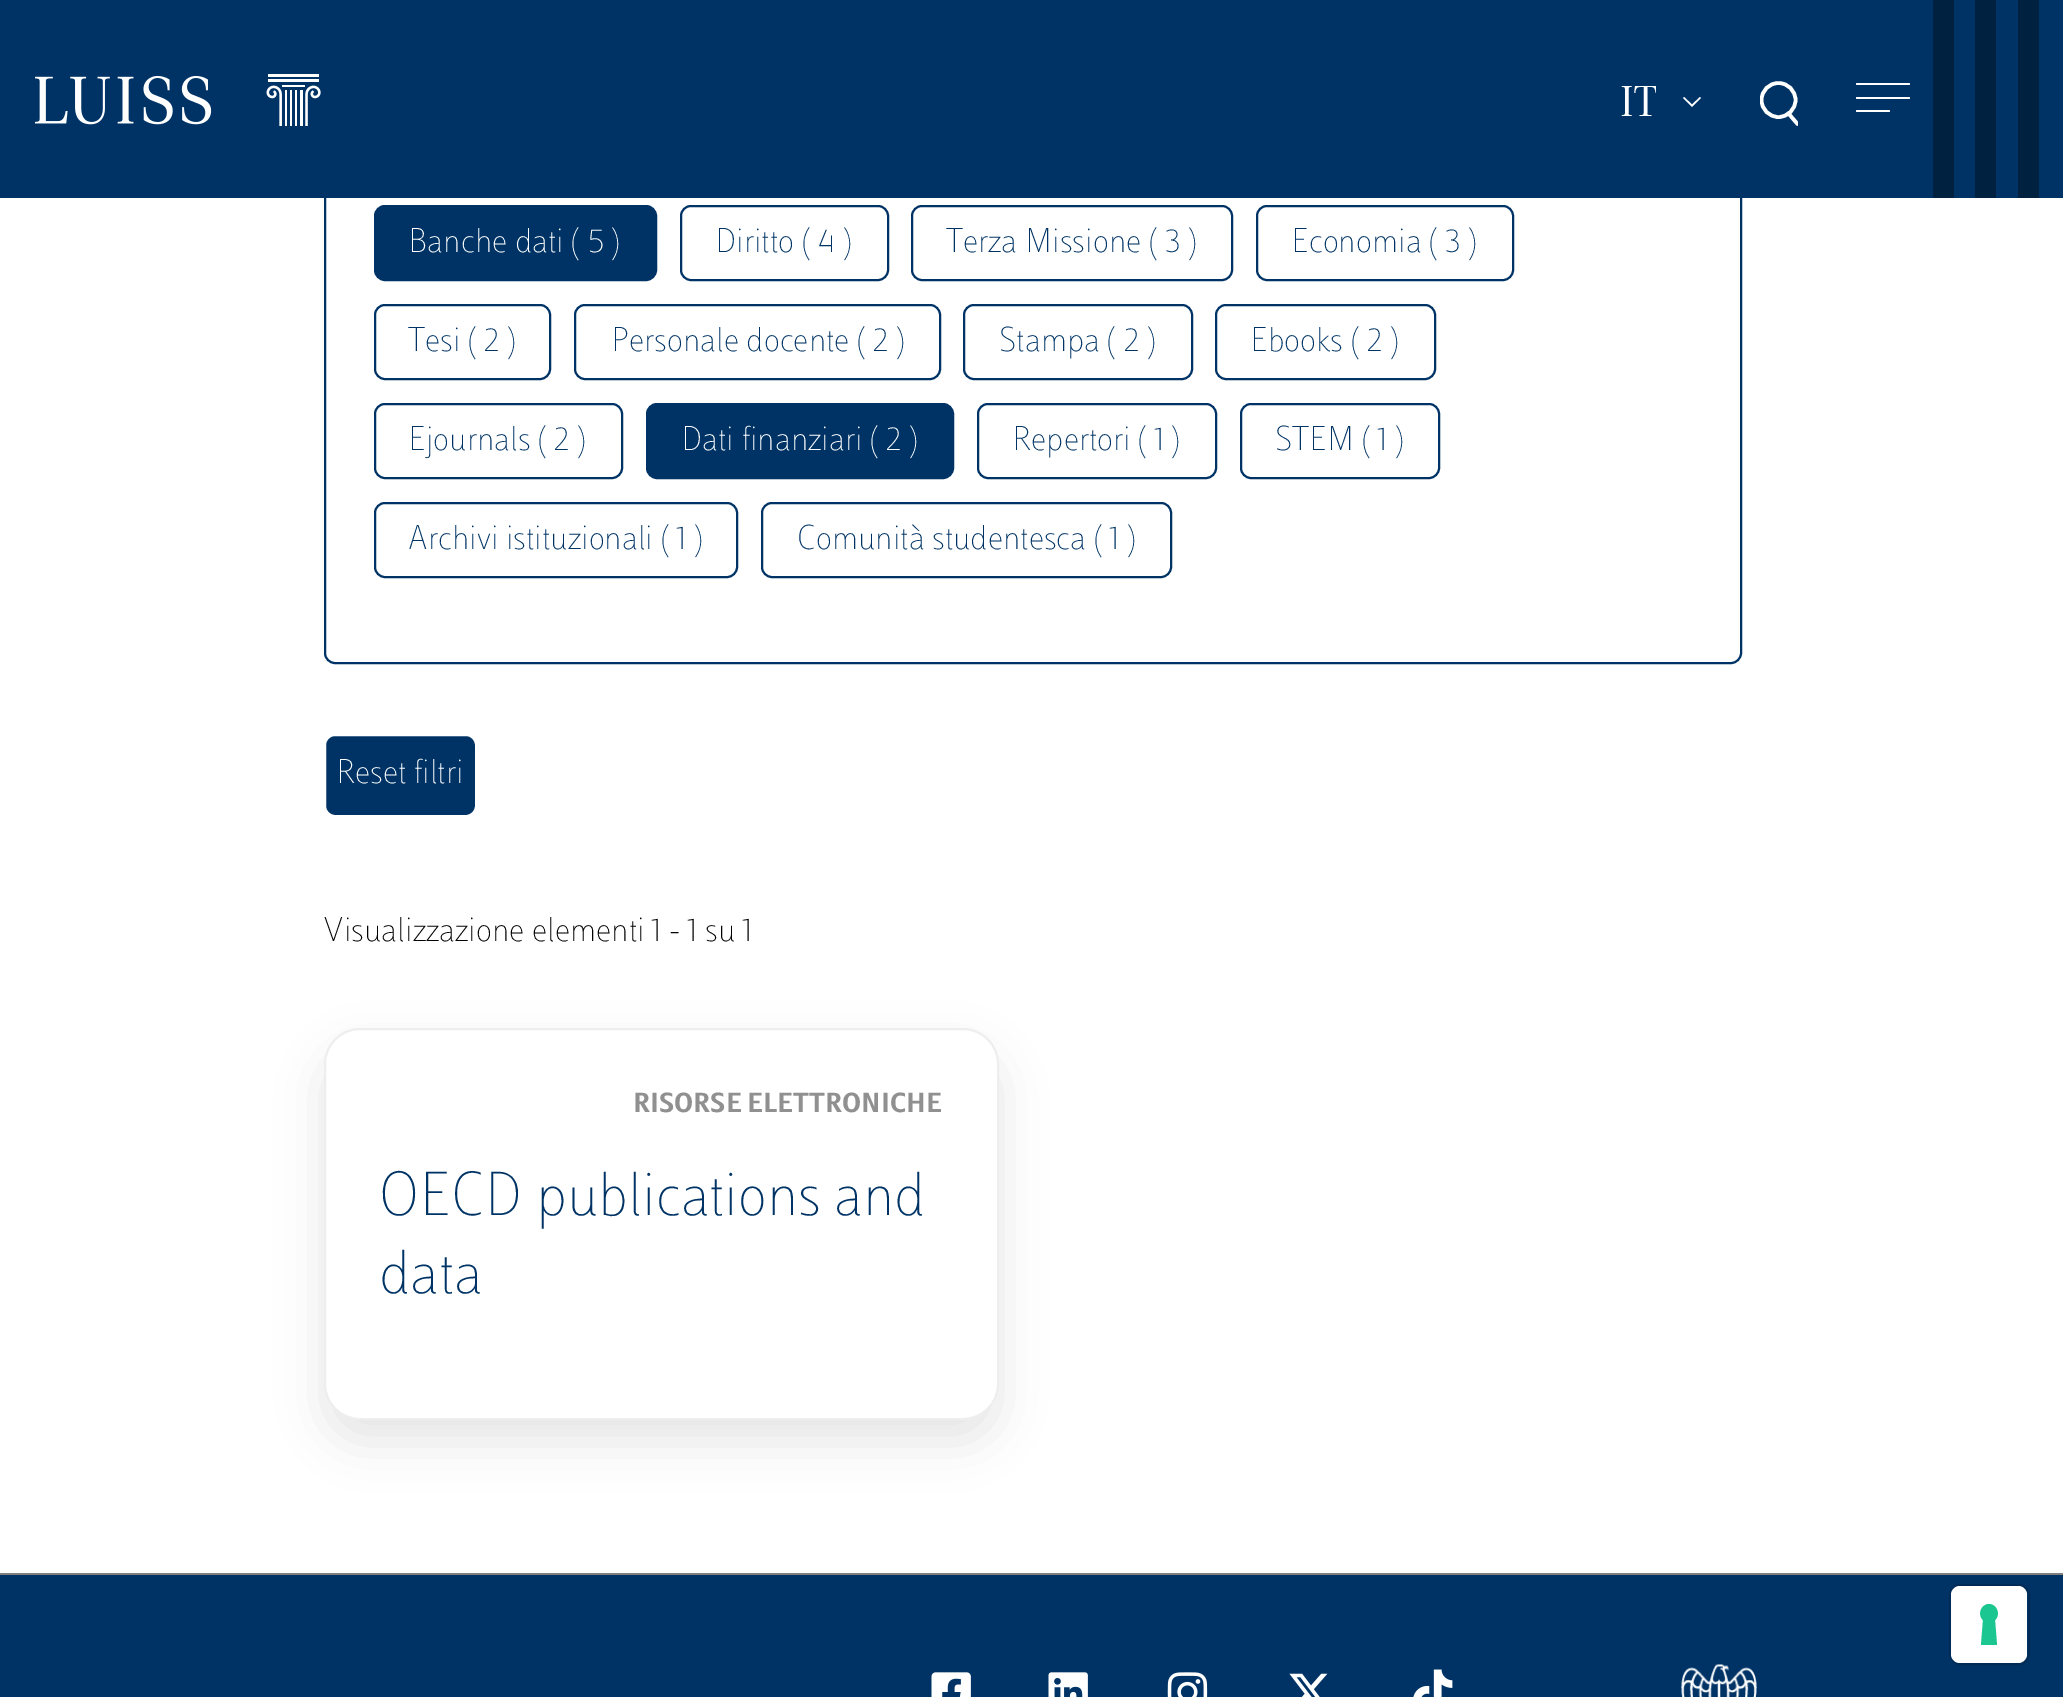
%!PS-Adobe-3.0
%%BoundingBox: 0 0 2063 1697
%%LanguageLevel: 3
%%Pages: 1
%%EndComments
%%BeginProlog
/m { moveto } bind def
/l { lineto } bind def
/c { curveto } bind def
/h { closepath } bind def
/f { fill } bind def
/S { stroke } bind def
/q { gsave } bind def
/Q { grestore } bind def
/w { setlinewidth } bind def
/fn { [ exch dup neg 0 0 3 -1 roll 0 0 ] selectfont } def
/tx { moveto show } def
/bx { rectfill } def
/al { dup .setfillconstantalpha .setstrokeconstantalpha } def
/ci { newpath 0 360 arc closepath } def
/rr { 5 dict begin { /r /h /w /y /x } { exch def } forall
  x r add y moveto x w add y 2 copy h add r arct x w add y h add x 1 index r arct
  x y h add x y r arct x y 2 copy exch w add exch r arct closepath end } def
/sh { 12 dict begin { /a /b /q /h /w /y /x } { exch def } forall gsave /was 0 def
  9 -2 -9 { dup b mul 4 div /e exch def 1 sub .425 mul 2.718 exch exp 1 add a .99 .min exch div /now exch def
    1 1 now sub 1 was sub div sub al /was now def
    w h .min e 2 mul add 0 gt { x e sub y e sub w e 2 mul add h e 2 mul add
      q e add b .6 mul add w h .min 2 div e add .min 0 .max rr fill } if } for grestore end } def
/im { 5 dict begin { /h /w /y /x /name } { exch def } forall
  gsave x y translate w h scale
  w h 8 [w 0 0 h 0 0] name (r) file false 3 colorimage grestore end } def
%%EndProlog
%%BeginSetup
<< /PageSize [2063 1697] /PageUsesTransparency true >> setpagedevice
%%EndSetup
%%Page: 1 1
0 .pushpdf14devicefilter
0 1697 translate 1 -1 scale
4 setmiterlimit
1 setgray
0 0 2063 1697 bx
0 0.2 0.396 setrgbcolor
2 w
325 -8 1416 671 10 rr S
0 0 2063 198 bx
(image0.raw) 35 74 286 52 im
q
1620 70 36 67 rectclip
/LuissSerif-Regular 45 fn
1 setgray
(IT) 1620 116 tx
Q
1 setgray
1683 98 m 1692 107 l 1701 98 l 1700 97 l 1692 104.5 l 1684 97 l h f
q
1760 81 38 45 rectclip
3.6 w
1778.5 100 17 ci S
1 setlinecap
1 setlinejoin
1797.5 124 m 1788.5 113.5 l S
Q
1856 83 54 2 1 rr f
1856 97 54 2 1 rr f
1856 110 34 2 1 rr f
0 0.133 0.251 setrgbcolor
1933 0 21 198 bx
1975 0 21 198 bx
2018 0 21 198 bx
0 0.2 0.396 setrgbcolor
375 206 281 74 10 rr q f Q
S
/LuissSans-Thin 36 fn
1 setgray
(Banche dati \( 5 \)) 408 252 tx
0 0.2 0.396 setrgbcolor
681 206 207 74 10 rr S
(Diritto \( 4 \)) 715 252 tx
912 206 320 74 10 rr S
(Terza Missione \( 3 \)) 946 252 tx
1257 206 256 74 10 rr S
(Economia \( 3 \)) 1291 252 tx
375 305 175 74 10 rr S
(Tesi \( 2 \)) 408 351 tx
575 305 365 74 10 rr S
(Personale docente \( 2 \)) 611 351 tx
964 305 228 74 10 rr S
(Stampa \( 2 \)) 999 351 tx
1216 305 219 74 10 rr S
(Ebooks \( 2 \)) 1250 351 tx
375 404 247 74 10 rr S
(Ejournals \( 2 \)) 408 450 tx
647 404 306 74 10 rr q f Q
S
1 setgray
(Dati finanziari \( 2 \)) 681 450 tx
0 0.2 0.396 setrgbcolor
978 404 238 74 10 rr S
(Repertori \( 1 \)) 1012 450 tx
1241 404 198 74 10 rr S
(STEM \( 1 \)) 1275 450 tx
375 503 362 74 10 rr S
(Archivi istituzionali \( 1 \)) 408 549 tx
762 503 409 74 10 rr S
(Comunità studentesca \( 1 \)) 797 549 tx
325 735 151 81 10 rr q f Q
1 setgray
S
(Reset filtri) 336 783 tx
0.004 setgray
(Visualizzazione elementi 1 - 1 su 1) 323 941 tx
q
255 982 m 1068 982 l 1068 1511 l 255 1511 l h 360 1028 m 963 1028 l 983 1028 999 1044 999 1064 c 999 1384 l 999 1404 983 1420 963 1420 c 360 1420 l 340 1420 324 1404 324 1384 c 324 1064 l 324 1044 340 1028 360 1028 c h eoclip newpath
0 setgray
324 1051 675 391 36 22.5 0.1 sh
Q
0.933 setgray
325 1029 673 390 35 rr S
/LuissSans-Bold 28.75 fn
0.565 setgray
(RISORSE ELETTRONICHE) 633 1112 tx
/LuissSans-Thin 64.75 fn
0 0.2 0.396 setrgbcolor
(OECD publications and) 379 1215 tx
(data) 379 1293 tx
0 1575 2063 122 bx
0.502 setgray
0 1573 2063 2 bx
(image1.raw) 931 1672 40 25 im
(image2.raw) 1048 1672 40 25 im
(image3.raw) 1167 1672 41 25 im
(image4.raw) 1289 1673 39 24 im
(image5.raw) 1413 1669 40 28 im
(image6.raw) 1681 1664 76 33 im
0 0.169 0.337 setrgbcolor
1950 1585 79 79 10 rr S
1 setgray
1951 1586 76 77 9 rr f
0.11 0.776 0.569 setrgbcolor
1989 1604 m 1997 1604 2001 1615 1995 1620 c 1997 1645 l 1981 1645 l 1983 1620 l 1977 1615 1981 1604 1989 1604 c h eofill
.poppdf14devicefilter showpage
%%EOF
